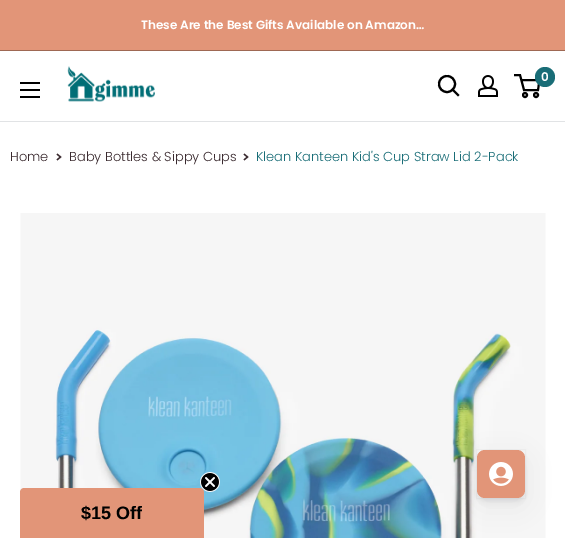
%!PS-Adobe-3.0
%%BoundingBox: 0 0 565 538
%%LanguageLevel: 3
%%Pages: 1
%%EndComments
%%BeginProlog
/m { moveto } bind def
/l { lineto } bind def
/c { curveto } bind def
/h { closepath } bind def
/f { fill } bind def
/S { stroke } bind def
/w { setlinewidth } bind def
/fn { [ exch dup neg 0 0 3 -1 roll 0 0 ] selectfont } def
/tx { moveto show } def
/bx { rectfill } def
/al { dup .setfillconstantalpha .setstrokeconstantalpha } def
/ci { newpath 0 360 arc closepath } def
/rr { 5 dict begin { /r /h /w /y /x } { exch def } forall
  x r add y moveto x w add y 2 copy h add r arct x w add y h add x 1 index r arct
  x y h add x y r arct x y 2 copy exch w add exch r arct closepath end } def
/sh { 12 dict begin { /a /b /q /h /w /y /x } { exch def } forall gsave /was 0 def
  9 -2 -9 { dup b mul 4 div /e exch def 1 sub .425 mul 2.718 exch exp 1 add a .99 .min exch div /now exch def
    1 1 now sub 1 was sub div sub al /was now def
    w h .min e 2 mul add 0 gt { x e sub y e sub w e 2 mul add h e 2 mul add
      q e add b .6 mul add w h .min 2 div e add .min 0 .max rr fill } if } for grestore end } def
/im { 5 dict begin { /h /w /y /x /name } { exch def } forall
  gsave x y translate w h scale
  w h 8 [w 0 0 h 0 0] name (r) file false 3 colorimage grestore end } def
%%EndProlog
%%BeginSetup
<< /PageSize [565 538] /PageUsesTransparency true >> setpagedevice
%%EndSetup
%%Page: 1 1
0 .pushpdf14devicefilter
0 538 translate 1 -1 scale
4 setmiterlimit
1 setgray
0 0 565 538 bx
0.886 0.584 0.471 setrgbcolor
0 0 565 50 bx
0.62 0.408 0.329 setrgbcolor
0 50 565 1 bx
/Poppins-SemiBold 12 fn
1 setgray
(These Are the Best Gifts Available on Amazon…) 141 29 tx
0.882 0.89 0.898 setrgbcolor
0 121 565 1 bx
(image0.raw) 67 66 88 36 im
0 setgray
2.1 w
2 setlinecap
458 95 m 452.5 89.5 l S
0 setlinecap
447 84 8 ci S
(image1.raw) 478 75 20 22 im
2 w
525 95 2 ci S
536 95 2 ci S
521.5 80 m 539.5 80 l 538 90 l 524 90 l 520 75 l 514 75 l S
0.098 0.427 0.467 setrgbcolor
545 77 10 ci f
1 setgray
(0) 541 81 tx
(image2.raw) 20 82 20 16 im
/Poppins-Light 13 fn
0.227 0.165 0.184 setrgbcolor
(Home) 10 161 tx
1.3 w
2 setlinecap
57.5 154.5 m 60.5 157 l 57.5 159.5 l S
(Baby Bottles & Sippy Cups) 69 161 tx
244.5 154.5 m 247.5 157 l 244.5 159.5 l S
0.098 0.427 0.467 setrgbcolor
(Klean Kanteen Kid's Cup Straw Lid 2-Pack) 256 161 tx
(image3.raw) 20 213 526 325 im
0.886 0.584 0.471 setrgbcolor
24 488 m 200 488 l 202 488 204 490 204 492 c 204 538 l 20 538 l 20 492 l 20 490 22 488 24 488 c h f
(image4.raw) 200 472 20 20 im
/LiberationSans-Bold 18 fn
0 setgray
($15 Off) 81 519 tx
0.216 0.247 0.278 setrgbcolor
477 458 48 48 8 12 0.08 sh
477 454 48 48 8 2 0.08 sh
0.04 al
1 w
0 setlinecap
476.5 449.5 49 49 rectstroke
1 al
0.886 0.584 0.471 setrgbcolor
477 450 48 48 8 rr f
(image5.raw) 489 462 24 24 im
.poppdf14devicefilter showpage
%%EOF
